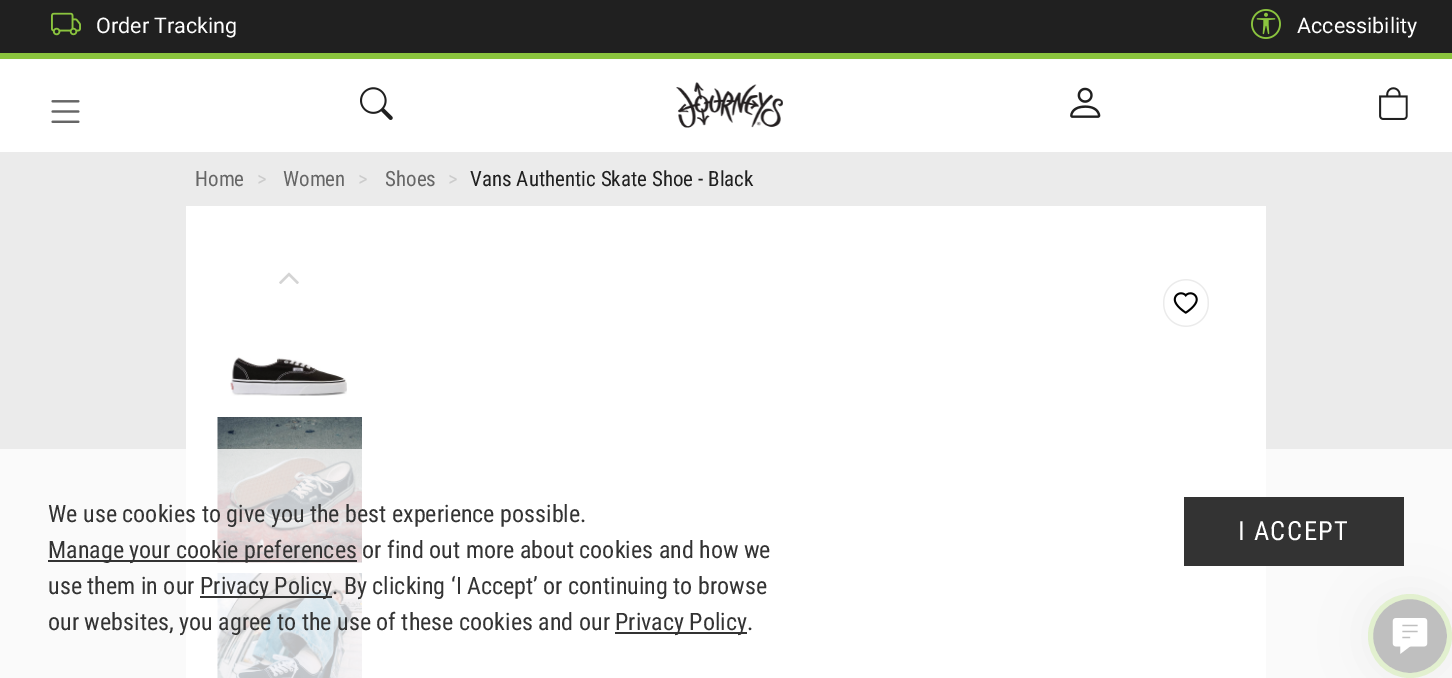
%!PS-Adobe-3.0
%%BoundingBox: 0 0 1452 678
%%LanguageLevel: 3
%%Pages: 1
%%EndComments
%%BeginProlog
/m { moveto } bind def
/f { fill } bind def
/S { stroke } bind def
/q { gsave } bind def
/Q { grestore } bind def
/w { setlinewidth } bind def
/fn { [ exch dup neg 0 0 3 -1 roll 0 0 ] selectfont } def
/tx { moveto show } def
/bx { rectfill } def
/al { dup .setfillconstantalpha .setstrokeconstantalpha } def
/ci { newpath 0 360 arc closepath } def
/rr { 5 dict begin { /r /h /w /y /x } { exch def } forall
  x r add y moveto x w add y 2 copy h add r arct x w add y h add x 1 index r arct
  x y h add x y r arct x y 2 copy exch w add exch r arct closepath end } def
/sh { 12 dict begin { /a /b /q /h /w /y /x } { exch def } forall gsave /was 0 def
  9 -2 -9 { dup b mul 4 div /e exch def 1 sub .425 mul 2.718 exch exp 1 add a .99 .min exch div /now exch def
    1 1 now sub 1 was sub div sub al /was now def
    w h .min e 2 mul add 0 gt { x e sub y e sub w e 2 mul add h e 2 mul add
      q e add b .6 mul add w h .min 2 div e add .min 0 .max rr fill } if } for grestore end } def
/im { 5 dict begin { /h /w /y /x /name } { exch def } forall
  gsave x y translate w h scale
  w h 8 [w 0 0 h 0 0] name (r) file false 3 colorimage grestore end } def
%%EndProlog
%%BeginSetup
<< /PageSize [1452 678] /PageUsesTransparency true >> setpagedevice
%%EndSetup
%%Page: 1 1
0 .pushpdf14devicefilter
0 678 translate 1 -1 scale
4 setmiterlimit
0.922 setgray
0 0 1452 678 bx
1 setgray
0 59 1452 93 bx
0.125 setgray
0 0 1452 53 bx
0.545 0.769 0.243 setrgbcolor
0 53 1452 6 bx
(image0.raw) 51 12 30 24 im
/Roboto-Regular 21.5 fn
1 setgray
(Order Tracking) 96 33 tx
(image1.raw) 1251 9 30 30 im
(Accessibility) 1297 33 tx
(image2.raw) 51 100 29 23 im
(image3.raw) 360 87 33 33 im
(image4.raw) 676 82 107 46 im
(image5.raw) 1070 87 31 31 im
(image6.raw) 1379 87 29 33 im
/RobotoCondensed-Regular 21 fn
0.4 setgray
(Home) 195 186 tx
0.8 setgray
(>) 257 186 tx
0.4 setgray
(Women) 283 186 tx
0.8 setgray
(>) 358 186 tx
0.4 setgray
(Shoes) 385 186 tx
0.8 setgray
(>) 448 186 tx
0.125 setgray
(Vans Authentic Skate Shoe - Black) 470 186 tx
1 setgray
186 206 1080 472 bx
(image7.raw) 279 272 20 12 im
(image8.raw) 230 357 117 39 im
(image9.raw) 217 417 145 146 im
(image10.raw) 217 573 145 105 im
(image11.raw) 1163 279 46 48 im
0 setgray
1367 593 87 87 43.5 22.5 0.2 sh
1410 636 39.5 ci q f Q
0.545 0.769 0.243 setrgbcolor
5 w
S
(image12.raw) 1392 618 36 36 im
0.75 al
1 setgray
0 449 1452 229 bx
/RobotoCondensed-Regular 24 fn
1 al
0.2 setgray
(We use cookies to give you the best experience possible.) 48 522 tx
48 560 309 2 bx
(Manage your cookie preferences or find out more about cookies and how we) 48 558 tx
(use them in our) 48 594 tx
200 596 132 2 bx
(Privacy Policy. By clicking ‘I Accept’ or continuing to browse) 200 594 tx
(our websites, you agree to the use of these cookies and our) 48 630 tx
615 632 132 2 bx
(Privacy Policy.) 615 630 tx
1184 497 220 69 bx
/RobotoCondensed-Regular 26.5 fn
1 setgray
1238 540 m 1.5 0 (I ACCEPT) ashow
.poppdf14devicefilter showpage
%%EOF
